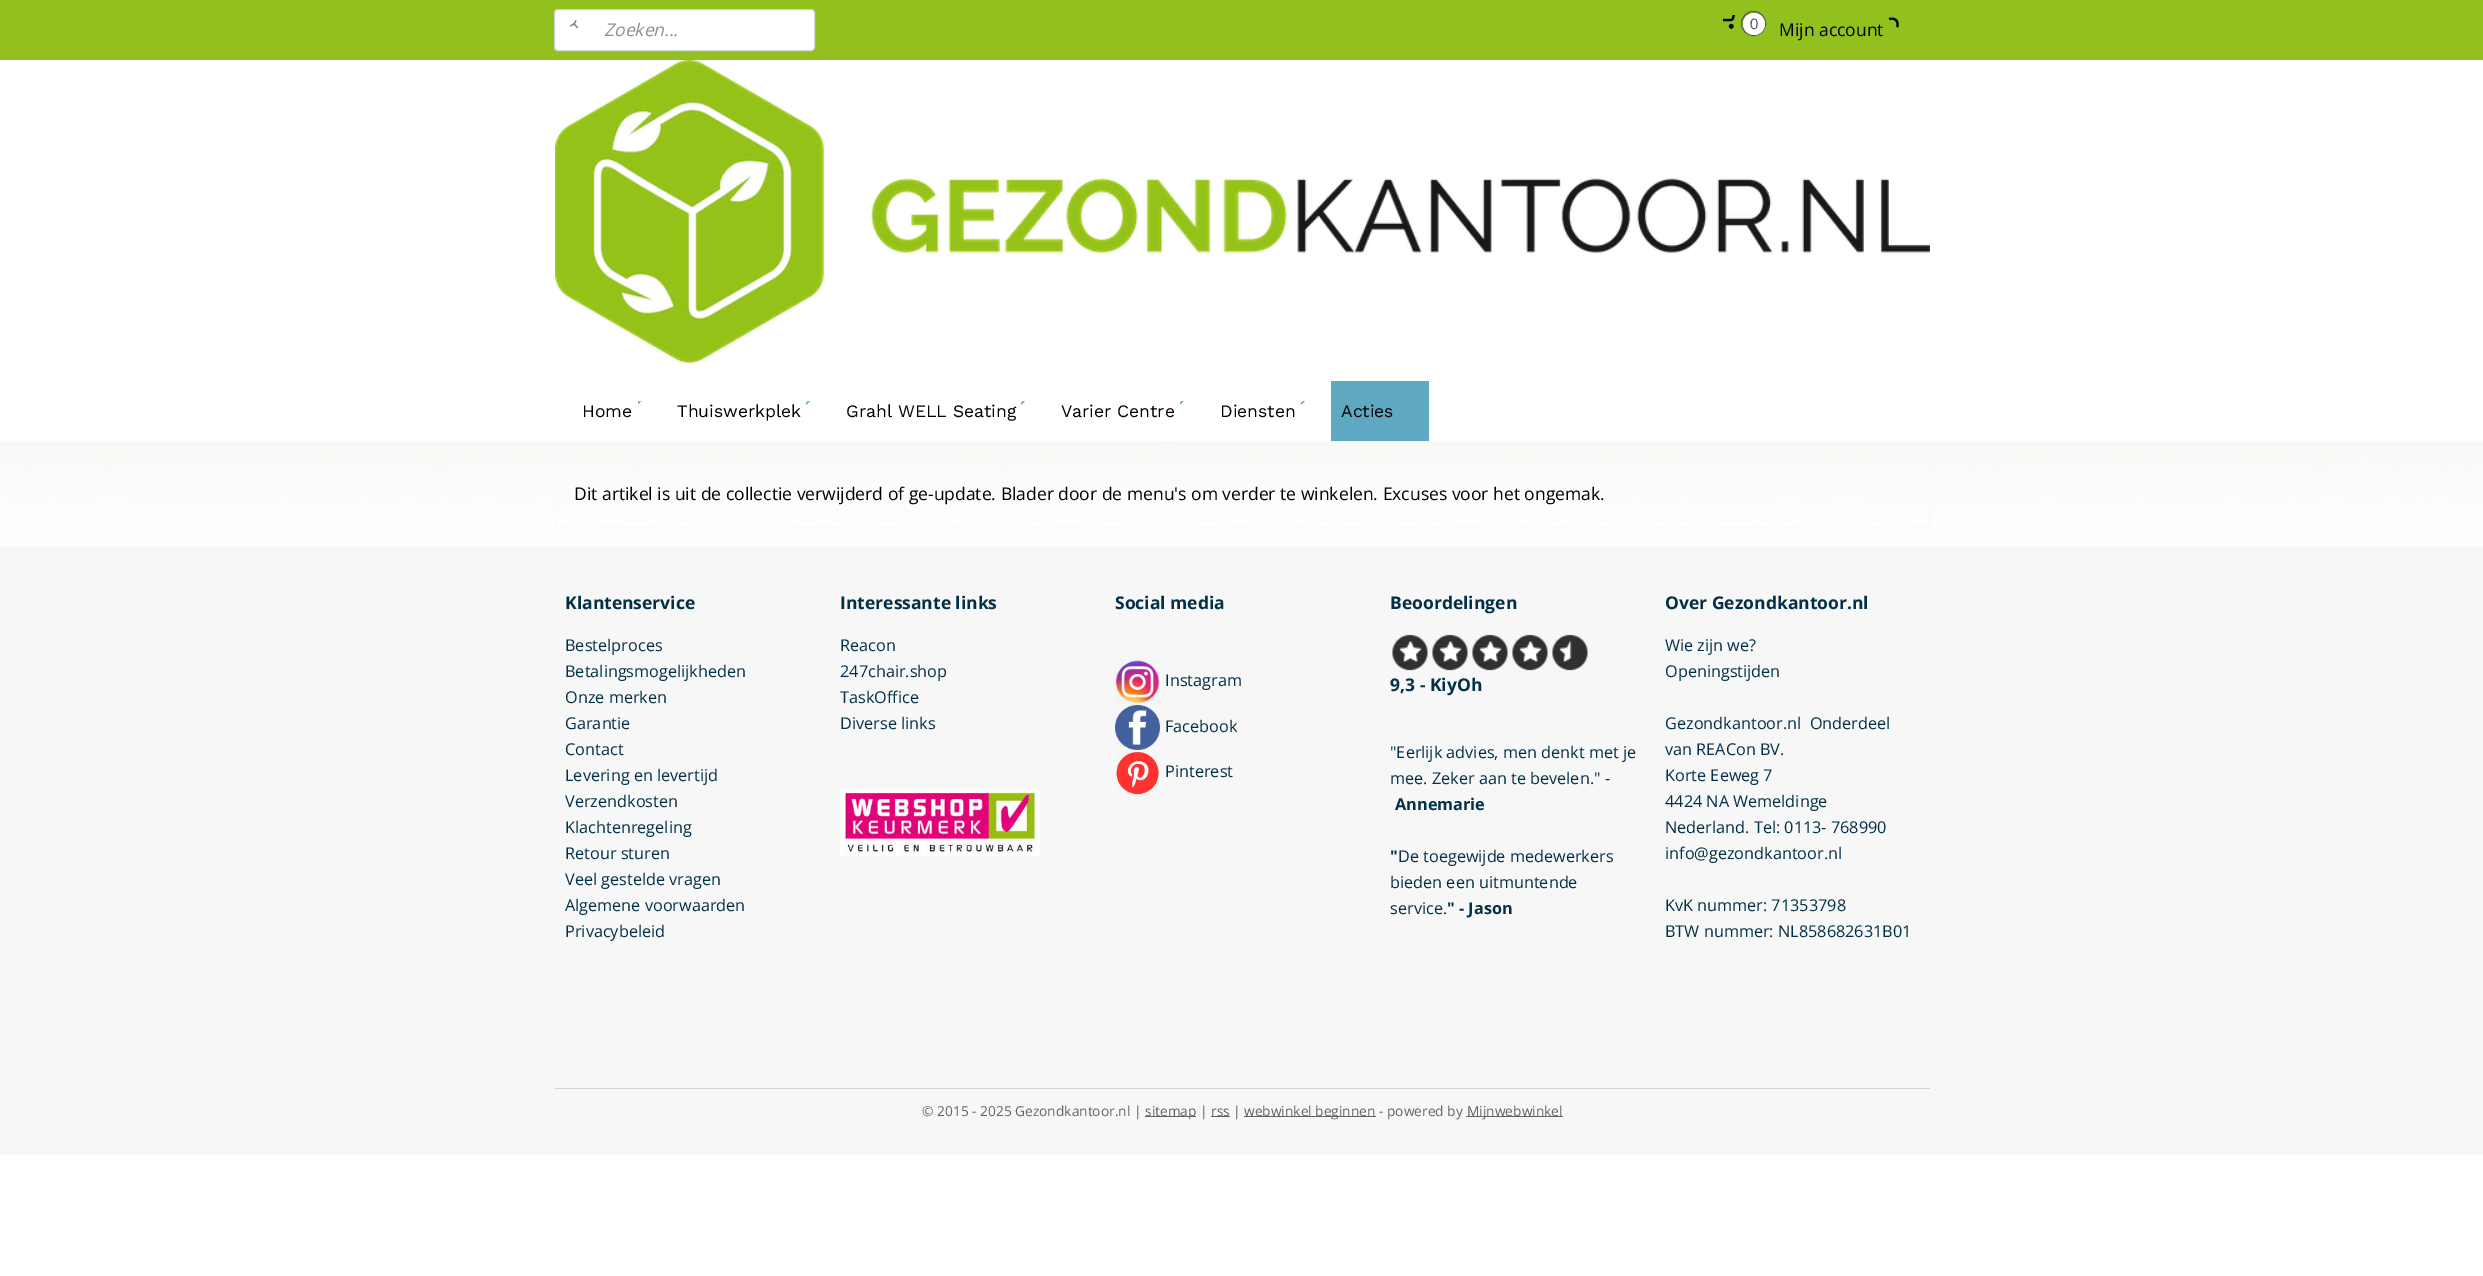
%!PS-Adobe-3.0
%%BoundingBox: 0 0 2483 1276
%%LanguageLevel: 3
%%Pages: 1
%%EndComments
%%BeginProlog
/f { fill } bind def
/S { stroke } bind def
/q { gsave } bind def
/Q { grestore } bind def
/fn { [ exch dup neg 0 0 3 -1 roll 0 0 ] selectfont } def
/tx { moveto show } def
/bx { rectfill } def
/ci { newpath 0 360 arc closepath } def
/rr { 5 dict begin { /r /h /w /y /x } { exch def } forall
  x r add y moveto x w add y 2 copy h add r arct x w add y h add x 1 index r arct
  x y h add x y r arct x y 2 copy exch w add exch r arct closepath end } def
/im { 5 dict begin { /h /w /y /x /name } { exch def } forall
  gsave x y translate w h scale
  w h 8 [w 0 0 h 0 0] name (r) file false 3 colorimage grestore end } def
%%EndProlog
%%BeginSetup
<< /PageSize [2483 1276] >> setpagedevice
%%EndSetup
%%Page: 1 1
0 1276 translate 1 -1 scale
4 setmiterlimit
1 setgray
0 0 2483 1276 bx
0.573 0.753 0.122 setrgbcolor
0 0 2483 60 bx
1 setgray
554.5 9.5 260 41 3.5 rr q f Q
0.827 0.835 0.851 setrgbcolor
S
(image0.raw) 570 20 9 9 im
/OpenSans-Italic 17.5 fn
0.537 0.549 0.569 setrgbcolor
(Zoeken...) 604 36 tx
(image1.raw) 1723 15 12 14 im
0.341 0.357 0.384 setrgbcolor
1753.5 23.5 12 ci S
1 setgray
1754 24 11 ci f
/LiberationSans-Regular 15 fn
0.341 0.357 0.384 setrgbcolor
(0) 1750 29 tx
/OpenSans-Regular 17.5 fn
0 setgray
(Mijn account) 1779 36 tx
(image2.raw) 1889 17 10 11 im
(image3.raw) 555 60 1375 303 im
(image4.raw) 638 401 4 4 im
/WorkSans-Regular 17.5 fn
(Home) 582 417 tx
(image5.raw) 806 401 4 4 im
(Thuiswerkplek) 677 417 tx
(image5.raw) 1021 401 4 4 im
(Grahl WELL Seating) 846 417 tx
(image6.raw) 1180 401 4 4 im
(Varier Centre) 1061 417 tx
(image5.raw) 1301 401 4 4 im
(Diensten) 1220 417 tx
0.369 0.659 0.761 setrgbcolor
1331 381 98 60 bx
0 setgray
(Acties) 1341 417 tx
(image7.raw) 0 441 2483 835 im
0.973 0.976 0.984 setrgbcolor
554.5 460.5 1375 67 rectstroke
/OpenSans-Regular 17.5 fn
0 setgray
(Dit artikel is uit de collectie verwijderd of ge-update. Blader door de menu's om verder te winkelen. Excuses voor het ongemak.) 574 500 tx
0.969 setgray
0 546 2483 609 bx
/OpenSans-Bold 17.5 fn
0.008 0.188 0.278 setrgbcolor
(Klantenservice) 565 609 tx
/OpenSans-Regular 16.25 fn
(Bestelproces) 565 651 tx
(Betalingsmogelijkheden) 565 677 tx
(Onze merken) 565 703 tx
(Garantie) 565 729 tx
(Contact) 565 755 tx
(Levering en levertijd) 565 781 tx
(Verzendkosten) 565 807 tx
(Klachtenregeling) 565 833 tx
(Retour sturen) 565 859 tx
(Veel gestelde vragen) 565 885 tx
(Algemene voorwaarden) 565 911 tx
(Privacybeleid) 565 937 tx
/OpenSans-Bold 17.5 fn
(Interessante links) 840 609 tx
/OpenSans-Regular 16.25 fn
(Reacon) 840 651 tx
(247chair.shop) 840 677 tx
(TaskOffice) 840 703 tx
(Diverse links) 840 729 tx
(image8.raw) 840 789 200 67 im
/OpenSans-Bold 17.5 fn
(Social media) 1115 609 tx
(image9.raw) 1115 659 45 46 im
/OpenSans-Regular 16.25 fn
(Instagram) 1165 686 tx
(image10.raw) 1115 705 45 45 im
(Facebook) 1165 732 tx
(image11.raw) 1115 750 45 45 im
(Pinterest) 1165 777 tx
/OpenSans-Bold 17.5 fn
(Beoordelingen) 1390 609 tx
(image12.raw) 1392 634 196 37 im
(9,3 - KiyOh) 1390 691 tx
/OpenSans-Regular 16.25 fn
("Eerlijk advies, men denkt met je) 1390 758 tx
(mee. Zeker aan te bevelen." -) 1390 784 tx
/OpenSans-Bold 16.25 fn
(Annemarie) 1395 810 tx
(") 1390 862 tx
/OpenSans-Regular 16.25 fn
(De toegewijde medewerkers) 1398 862 tx
(bieden een uitmuntende) 1390 888 tx
(service.) 1390 914 tx
/OpenSans-Bold 16.25 fn
(" - Jason) 1447 914 tx
/OpenSans-Bold 17.5 fn
(Over Gezondkantoor.nl) 1665 609 tx
/OpenSans-Regular 16.25 fn
(Wie zijn we?) 1665 651 tx
(Openingstijden) 1665 677 tx
(Gezondkantoor.nl  Onderdeel) 1665 729 tx
(van REACon BV.) 1665 755 tx
(Korte Eeweg 7) 1665 781 tx
(4424 NA Wemeldinge) 1665 807 tx
(Nederland. Tel: 0113- 768990) 1665 833 tx
(info@gezondkantoor.nl) 1665 859 tx
(KvK nummer: 71353798) 1665 911 tx
(BTW nummer: NL858682631B01) 1665 937 tx
0.824 setgray
555 1088 1375 1 bx
/OpenSans-Regular 13.75 fn
0.388 setgray
(© 2015 - 2025 Gezondkantoor.nl |) 922 1116 tx
1145 1116 51 1 bx
(sitemap) 1145 1116 tx
(|) 1200 1116 tx
1211 1116 19 1 bx
(rss) 1211 1116 tx
(|) 1233 1116 tx
1244 1116 132 1 bx
(webwinkel beginnen) 1244 1116 tx
(- powered by) 1379 1116 tx
1466 1116 97 1 bx
(Mijnwebwinkel) 1467 1116 tx
showpage
%%EOF
